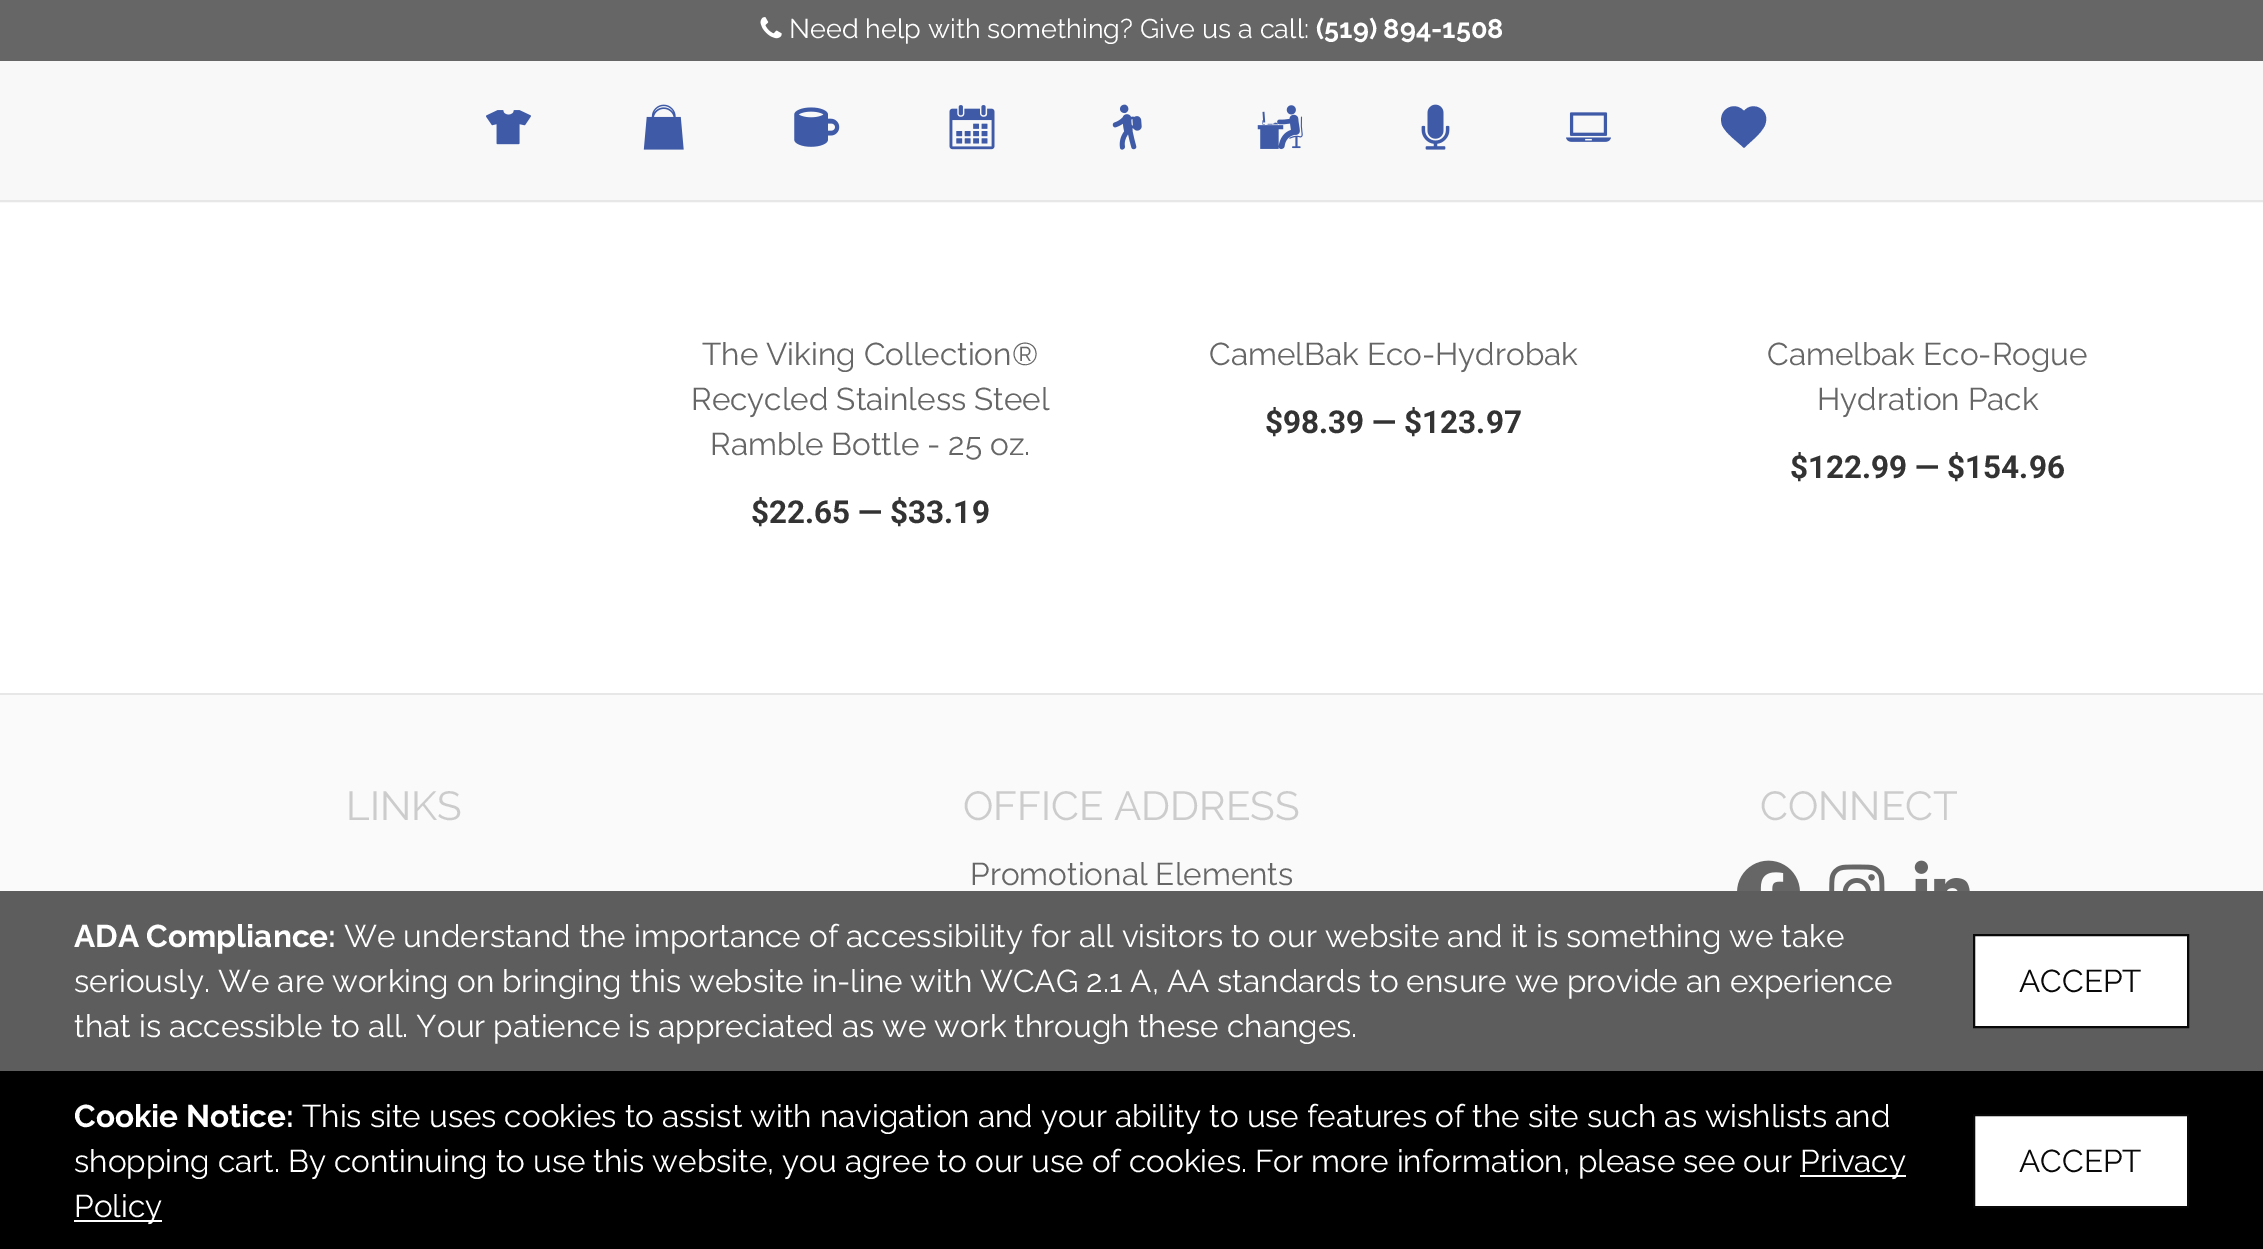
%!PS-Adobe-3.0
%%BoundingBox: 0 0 2263 1249
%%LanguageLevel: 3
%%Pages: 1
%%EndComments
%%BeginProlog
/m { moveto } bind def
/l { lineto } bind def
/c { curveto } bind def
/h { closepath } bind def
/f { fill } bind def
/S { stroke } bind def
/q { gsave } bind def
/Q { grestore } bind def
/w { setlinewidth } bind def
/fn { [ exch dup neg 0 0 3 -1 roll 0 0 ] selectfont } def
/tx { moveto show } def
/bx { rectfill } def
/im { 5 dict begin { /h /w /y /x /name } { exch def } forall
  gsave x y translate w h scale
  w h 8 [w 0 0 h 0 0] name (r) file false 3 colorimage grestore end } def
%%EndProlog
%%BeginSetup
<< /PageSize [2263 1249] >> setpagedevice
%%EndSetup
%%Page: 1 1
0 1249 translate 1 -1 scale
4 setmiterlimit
1 setgray
0 0 2263 1249 bx
0.4 setgray
0 0 2263 61 bx
(image0.raw) 760 17 22 22 im
/Raleway-Regular 27 fn
1 setgray
(Need help with something? Give us a call:) 789 38 tx
/Raleway-Bold 27 fn
(\(519\) 894-1508) 1316 38 tx
0.973 setgray
0 61 2263 142 bx
0.906 setgray
0 200 2263 2 bx
(image1.raw) 486 110 45 35 im
(image2.raw) 643 104 41 46 im
(image3.raw) 794 107 46 40 im
(image4.raw) 949 105 46 45 im
(image5.raw) 1112 104 30 46 im
(image6.raw) 1257 105 46 45 im
(image7.raw) 1421 104 29 46 im
(image8.raw) 1566 112 45 30 im
0.247 0.357 0.659 setrgbcolor
1744 148 m 1737 141 1726 134 1722 125 c 1717 110 1734 100 1744 111 c 1753 100 1771 110 1765 125 c 1761 134 1751 141 1744 148 c h f
/Raleway-Regular 31.5 fn
0.4 setgray
(The Viking Collection®) 702 365 tx
(Recycled Stainless Steel) 691 410 tx
(Ramble Bottle - 25 oz.) 710 455 tx
/Roboto-Bold 31.5 fn
0.2 setgray
($22.65 — $33.19) 751 523 tx
/Raleway-Regular 31.5 fn
0.4 setgray
(CamelBak Eco-Hydrobak) 1209 365 tx
/Roboto-Bold 31.5 fn
0.2 setgray
($98.39 — $123.97) 1265 433 tx
/Raleway-Regular 31.5 fn
0.4 setgray
(Camelbak Eco-Rogue) 1767 365 tx
(Hydration Pack) 1817 410 tx
/Roboto-Bold 31.5 fn
0.2 setgray
($122.99 — $154.96) 1790 478 tx
0.98 setgray
0 695 2263 196 bx
0.906 setgray
0 693 2263 2 bx
/Raleway-Regular 40.5 fn
0.8 setgray
(LINKS) 346 820 tx
(OFFICE ADDRESS) 963 820 tx
/Raleway-Regular 31.5 fn
0.4 setgray
(Promotional Elements) 970 885 tx
/Raleway-Regular 40.5 fn
0.8 setgray
(CONNECT) 1760 820 tx
(image9.raw) 1737 860 63 31 im
(image10.raw) 1829 864 56 27 im
(image11.raw) 1914 860 56 31 im
0.365 setgray
0 891 2263 180 bx
/Raleway-Bold 31.5 fn
1 setgray
(ADA Compliance:) 74 947 tx
/Raleway-Regular 31.5 fn
(We understand the importance of accessibility for all visitors to our website and it is something we take) 344 947 tx
(seriously. We are working on bringing this website in-line with WCAG 2.1 A, AA standards to ensure we provide an experience) 74 992 tx
(that is accessible to all. Your patience is appreciated as we work through these changes.) 74 1037 tx
1974 935 m 2188 935 l 2188 1027 l 1974 1027 l h q f Q
0.031 setgray
2 w
S
(ACCEPT) 2019 992 tx
0 setgray
0 1071 2263 178 bx
/Raleway-Bold 31.5 fn
1 setgray
(Cookie Notice:) 74 1127 tx
/Raleway-Regular 31.5 fn
(This site uses cookies to assist with navigation and your ability to use features of the site such as wishlists and) 302 1127 tx
(shopping cart. By continuing to use this website, you agree to our use of cookies. For more information, please see our) 74 1172 tx
1800 1175 106 2 bx
(Privacy) 1800 1172 tx
74 1220 88 2 bx
(Policy) 74 1217 tx
1974 1115 m 2188 1115 l 2188 1207 l 1974 1207 l h q f Q
0.031 setgray
S
(ACCEPT) 2019 1172 tx
showpage
%%EOF
